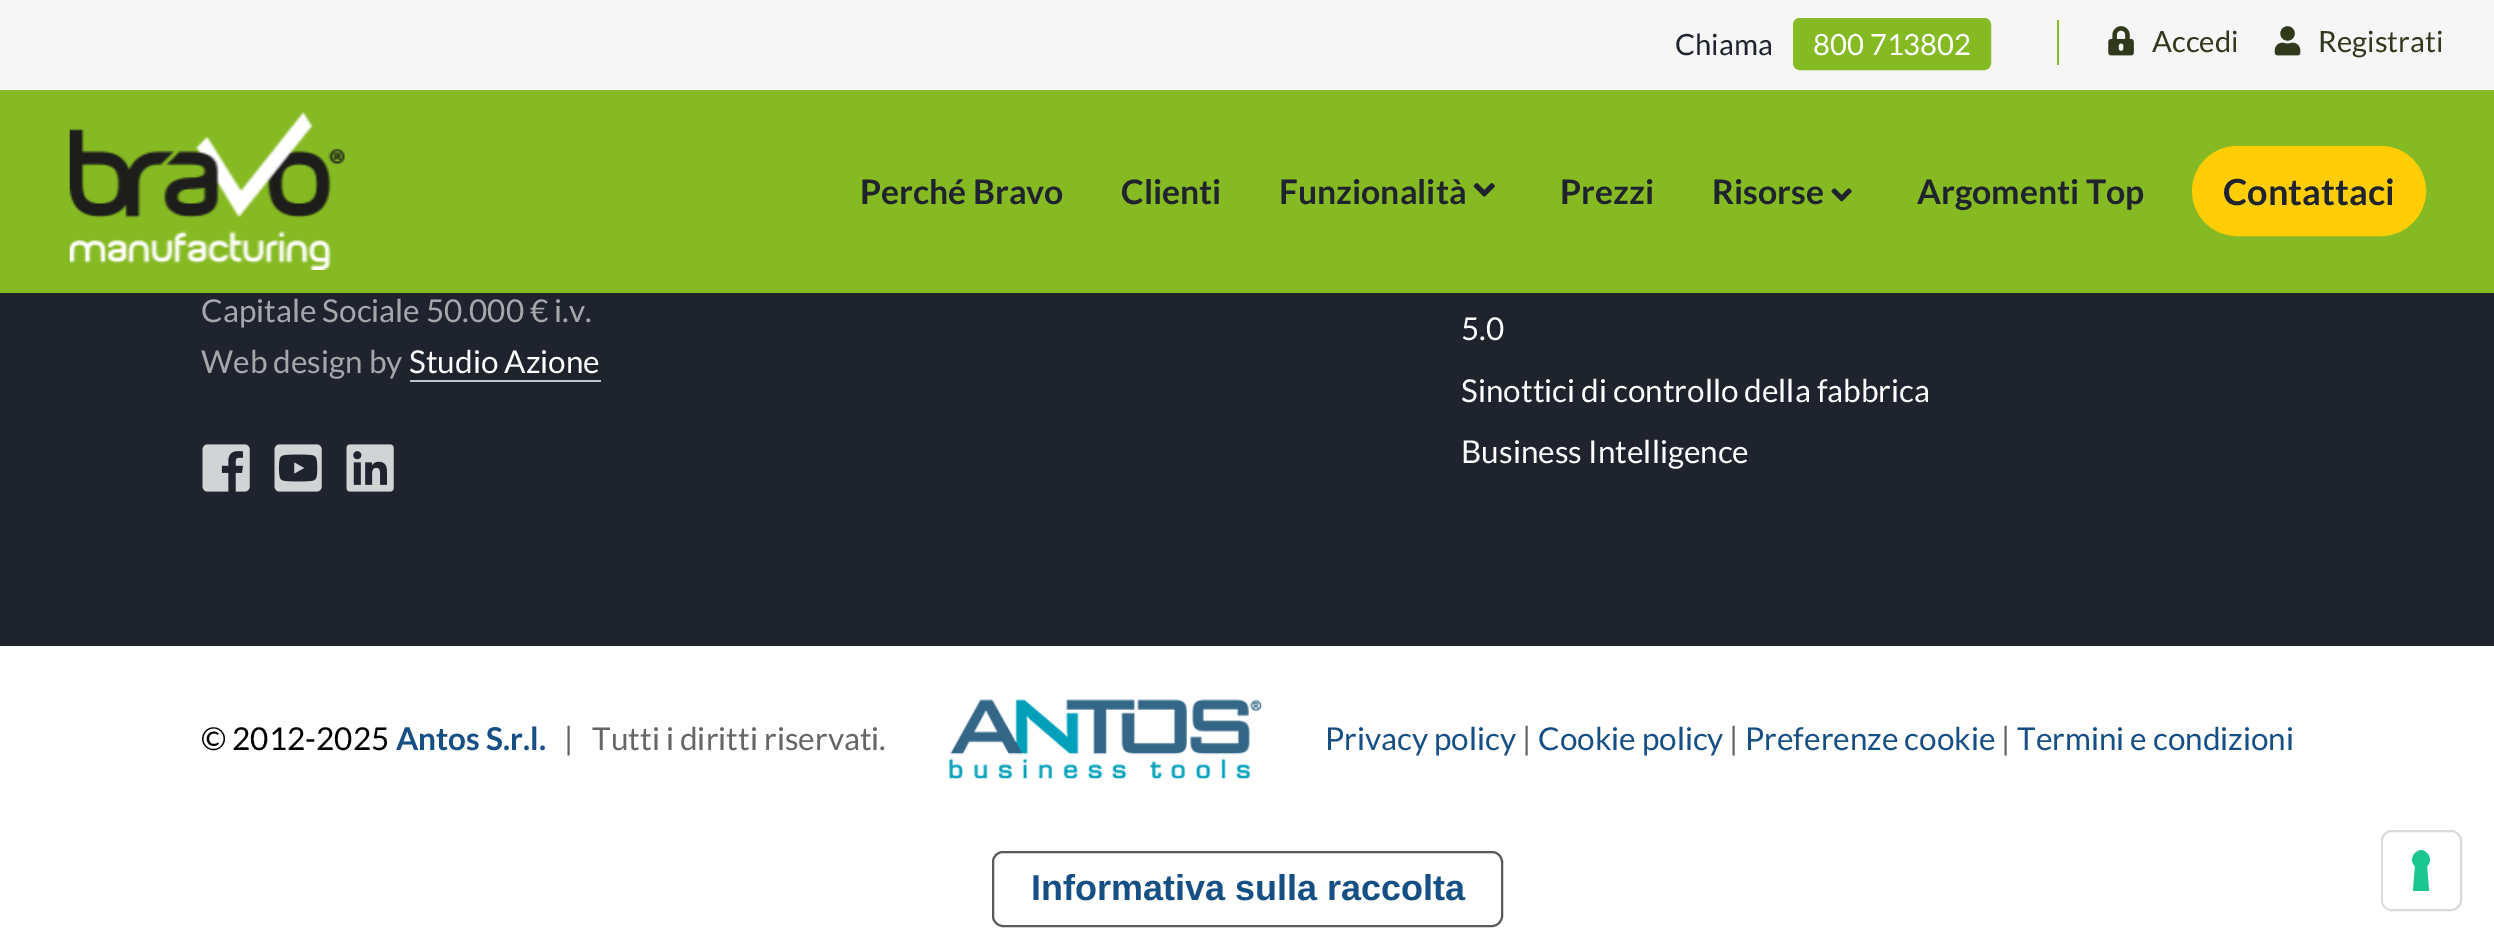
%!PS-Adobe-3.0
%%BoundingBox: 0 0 2494 945
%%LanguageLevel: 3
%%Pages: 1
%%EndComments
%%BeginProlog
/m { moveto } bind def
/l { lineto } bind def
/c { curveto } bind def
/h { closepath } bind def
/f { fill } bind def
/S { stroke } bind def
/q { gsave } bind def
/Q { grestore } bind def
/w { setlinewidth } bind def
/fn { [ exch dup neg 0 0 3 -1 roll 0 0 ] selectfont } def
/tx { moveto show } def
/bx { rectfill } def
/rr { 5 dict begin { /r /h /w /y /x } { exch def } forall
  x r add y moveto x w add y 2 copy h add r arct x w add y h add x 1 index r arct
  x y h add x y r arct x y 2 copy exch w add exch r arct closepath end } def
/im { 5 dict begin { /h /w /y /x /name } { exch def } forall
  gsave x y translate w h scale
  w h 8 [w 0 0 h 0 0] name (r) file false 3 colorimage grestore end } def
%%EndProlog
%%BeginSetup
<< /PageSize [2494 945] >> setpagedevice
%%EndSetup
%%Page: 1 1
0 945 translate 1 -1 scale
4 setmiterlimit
1 setgray
0 0 2494 945 bx
0.965 setgray
0 0 2494 90 bx
/Lato-Regular 29.25 fn
0.122 0.137 0.176 setrgbcolor
(Chiama) 1675 55 tx
0.525 0.729 0.137 setrgbcolor
1794 19 196 50 6 rr q f Q
2 w
S
1 setgray
(800 713802) 1813 55 tx
0.525 0.729 0.137 setrgbcolor
2057 20 2 45 bx
(image0.raw) 2108 26 26 30 im
0.188 0.224 0.11 setrgbcolor
(Accedi) 2152 52 tx
(image1.raw) 2274 26 27 30 im
(Registrati) 2318 52 tx
0.525 0.729 0.137 setrgbcolor
0 90 2494 203 bx
(image2.raw) 69 112 276 158 im
/Lato-Bold 33.75 fn
0.122 0.137 0.176 setrgbcolor
(Perché Bravo) 860 204 tx
(Clienti) 1121 204 tx
(Funzionalità) 1279 204 tx
(image3.raw) 1473 183 22 14 im
(Prezzi) 1560 204 tx
(Risorse) 1712 204 tx
(image4.raw) 1831 188 21 14 im
(Argomenti Top) 1917 204 tx
1 0.804 0.024 setrgbcolor
2194.5 148.5 229 85 42.5 rr q f Q
5 w
S
/Lato-Bold 36 fn
0.122 0.137 0.176 setrgbcolor
(Contattaci) 2223 205 tx
0 293 2494 353 bx
/Lato-Regular 31.5 fn
0.647 0.655 0.671 setrgbcolor
(Capitale Sociale 50.000 € i.v.) 201 322 tx
(Web design by) 201 373 tx
1 setgray
(Studio Azione) 409 373 tx
0.741 0.776 0.796 setrgbcolor
410 380 191 2 bx
(image5.raw) 202 444 48 48 im
(image6.raw) 274 444 48 48 im
(image7.raw) 346 444 48 48 im
1 setgray
(5.0) 1461 340 tx
(Sinottici di controllo della fabbrica) 1461 402 tx
(Business Intelligence) 1461 463 tx
0 setgray
(© 2012-2025) 201 750 tx
/Lato-Bold 31.5 fn
0.082 0.31 0.518 setrgbcolor
(Antos S.r.l.) 396 750 tx
/Lato-Regular 31.5 fn
0.4 setgray
(|) 564 750 tx
(Tutti i diritti riservati.) 592 750 tx
(image8.raw) 949 699 313 80 im
0.082 0.31 0.518 setrgbcolor
(Privacy policy) 1325 750 tx
0.4 setgray
(|) 1522 750 tx
0.082 0.31 0.518 setrgbcolor
(Cookie policy) 1538 750 tx
0.4 setgray
(|) 1729 750 tx
0.082 0.31 0.518 setrgbcolor
(Preferenze cookie) 1745 750 tx
0.4 setgray
(|) 2001 750 tx
0.082 0.31 0.518 setrgbcolor
(Termini e condizioni) 2017 750 tx
0.349 setgray
2 w
993 852 509 74 10 rr S
/LiberationSans-Bold 36 fn
0.082 0.31 0.518 setrgbcolor
(Informativa sulla raccolta) 1031 900 tx
0.851 setgray
2382 831 79 79 10 rr S
1 setgray
2383 833 76 76 9 rr f
0.11 0.776 0.569 setrgbcolor
2421 850 m 2429 851 2433 861 2427 866 c 2429 891 l 2413 891 l 2415 866 l 2409 861 2413 851 2421 850 c h eofill
showpage
%%EOF
